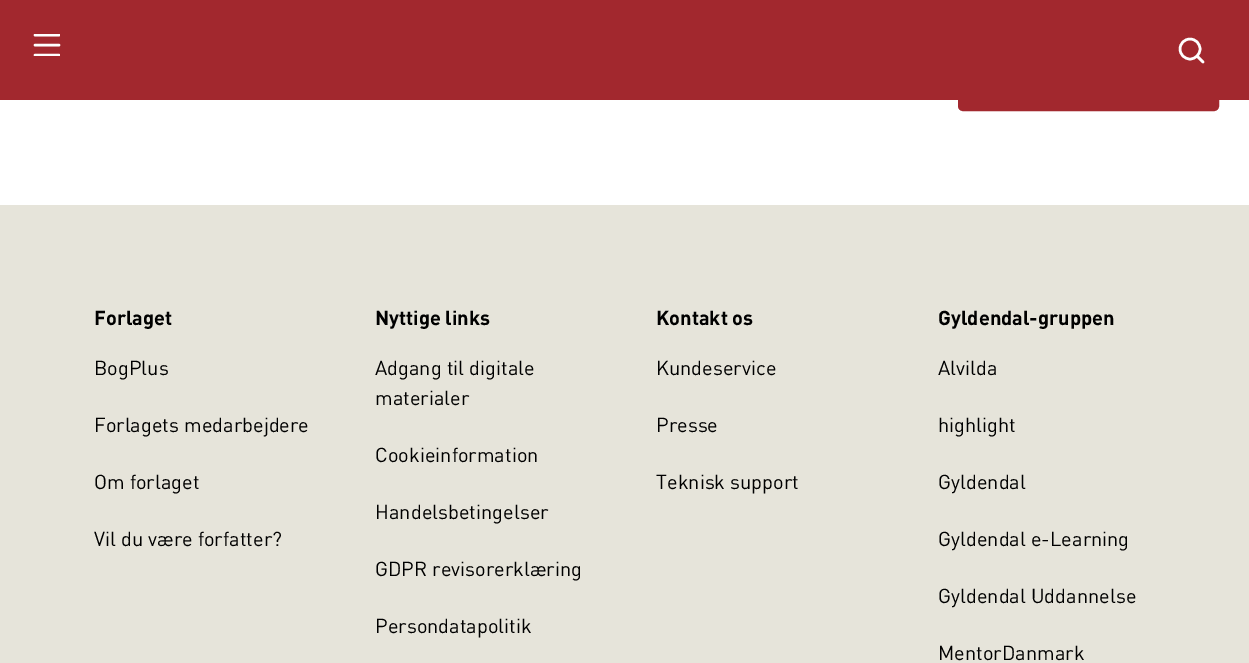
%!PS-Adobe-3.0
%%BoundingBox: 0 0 1249 663
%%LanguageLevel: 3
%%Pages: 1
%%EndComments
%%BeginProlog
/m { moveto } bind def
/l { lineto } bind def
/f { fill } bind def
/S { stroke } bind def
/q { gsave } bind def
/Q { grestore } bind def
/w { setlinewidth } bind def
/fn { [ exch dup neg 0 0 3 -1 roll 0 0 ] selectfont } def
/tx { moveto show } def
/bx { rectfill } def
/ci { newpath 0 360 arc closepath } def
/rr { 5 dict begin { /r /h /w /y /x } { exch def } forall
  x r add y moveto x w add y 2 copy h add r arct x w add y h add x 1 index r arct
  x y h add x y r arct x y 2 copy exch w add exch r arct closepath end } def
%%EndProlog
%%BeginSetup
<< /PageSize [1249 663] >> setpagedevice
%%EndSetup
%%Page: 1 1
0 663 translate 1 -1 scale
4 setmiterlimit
1 setgray
0 0 1249 663 bx
0.635 0.157 0.18 setrgbcolor
959.5 62.5 258 47 3.5 rr q f Q
3 w
S
0 0 1249 100 bx
q
31 34 29 22 rectclip
1 setgray
2.5 w
1 setlinecap
35 35 m 59 35 l S
Q
1 setgray
2.5 w
1 setlinecap
35 45 m 59 45 l S
q
31 34 29 22 rectclip
35 55 m 59 55 l S
Q
0 setlinecap
1190 49 10 ci S
1 setlinecap
1197 56 m 1203 62 l S
0.902 0.894 0.855 setrgbcolor
0 205 1249 458 bx
/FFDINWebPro-Regular 20 fn
0 setgray
(Forlaget) 94 325 tx
/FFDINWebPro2-Regular 20 fn
(BogPlus) 94 375 tx
(Forlagets medarbejdere) 94 432 tx
(Om forlaget) 94 489 tx
(Vil du være forfatter?) 94 546 tx
/FFDINWebPro-Regular 20 fn
(Nyttige links) 375 325 tx
/FFDINWebPro2-Regular 20 fn
(Adgang til digitale) 375 375 tx
(materialer) 375 405 tx
(Cookieinformation) 375 462 tx
(Handelsbetingelser) 375 519 tx
(GDPR revisorerklæring) 375 576 tx
(Persondatapolitik) 375 633 tx
/FFDINWebPro-Regular 20 fn
(Kontakt os) 656 325 tx
/FFDINWebPro2-Regular 20 fn
(Kundeservice) 656 375 tx
(Presse) 656 432 tx
(Teknisk support) 656 489 tx
/FFDINWebPro-Regular 20 fn
(Gyldendal-gruppen) 938 325 tx
/FFDINWebPro2-Regular 20 fn
(Alvilda) 938 375 tx
(highlight) 938 432 tx
(Gyldendal) 938 489 tx
(Gyldendal e-Learning) 938 546 tx
(Gyldendal Uddannelse) 938 603 tx
(MentorDanmark) 938 660 tx
showpage
%%EOF
